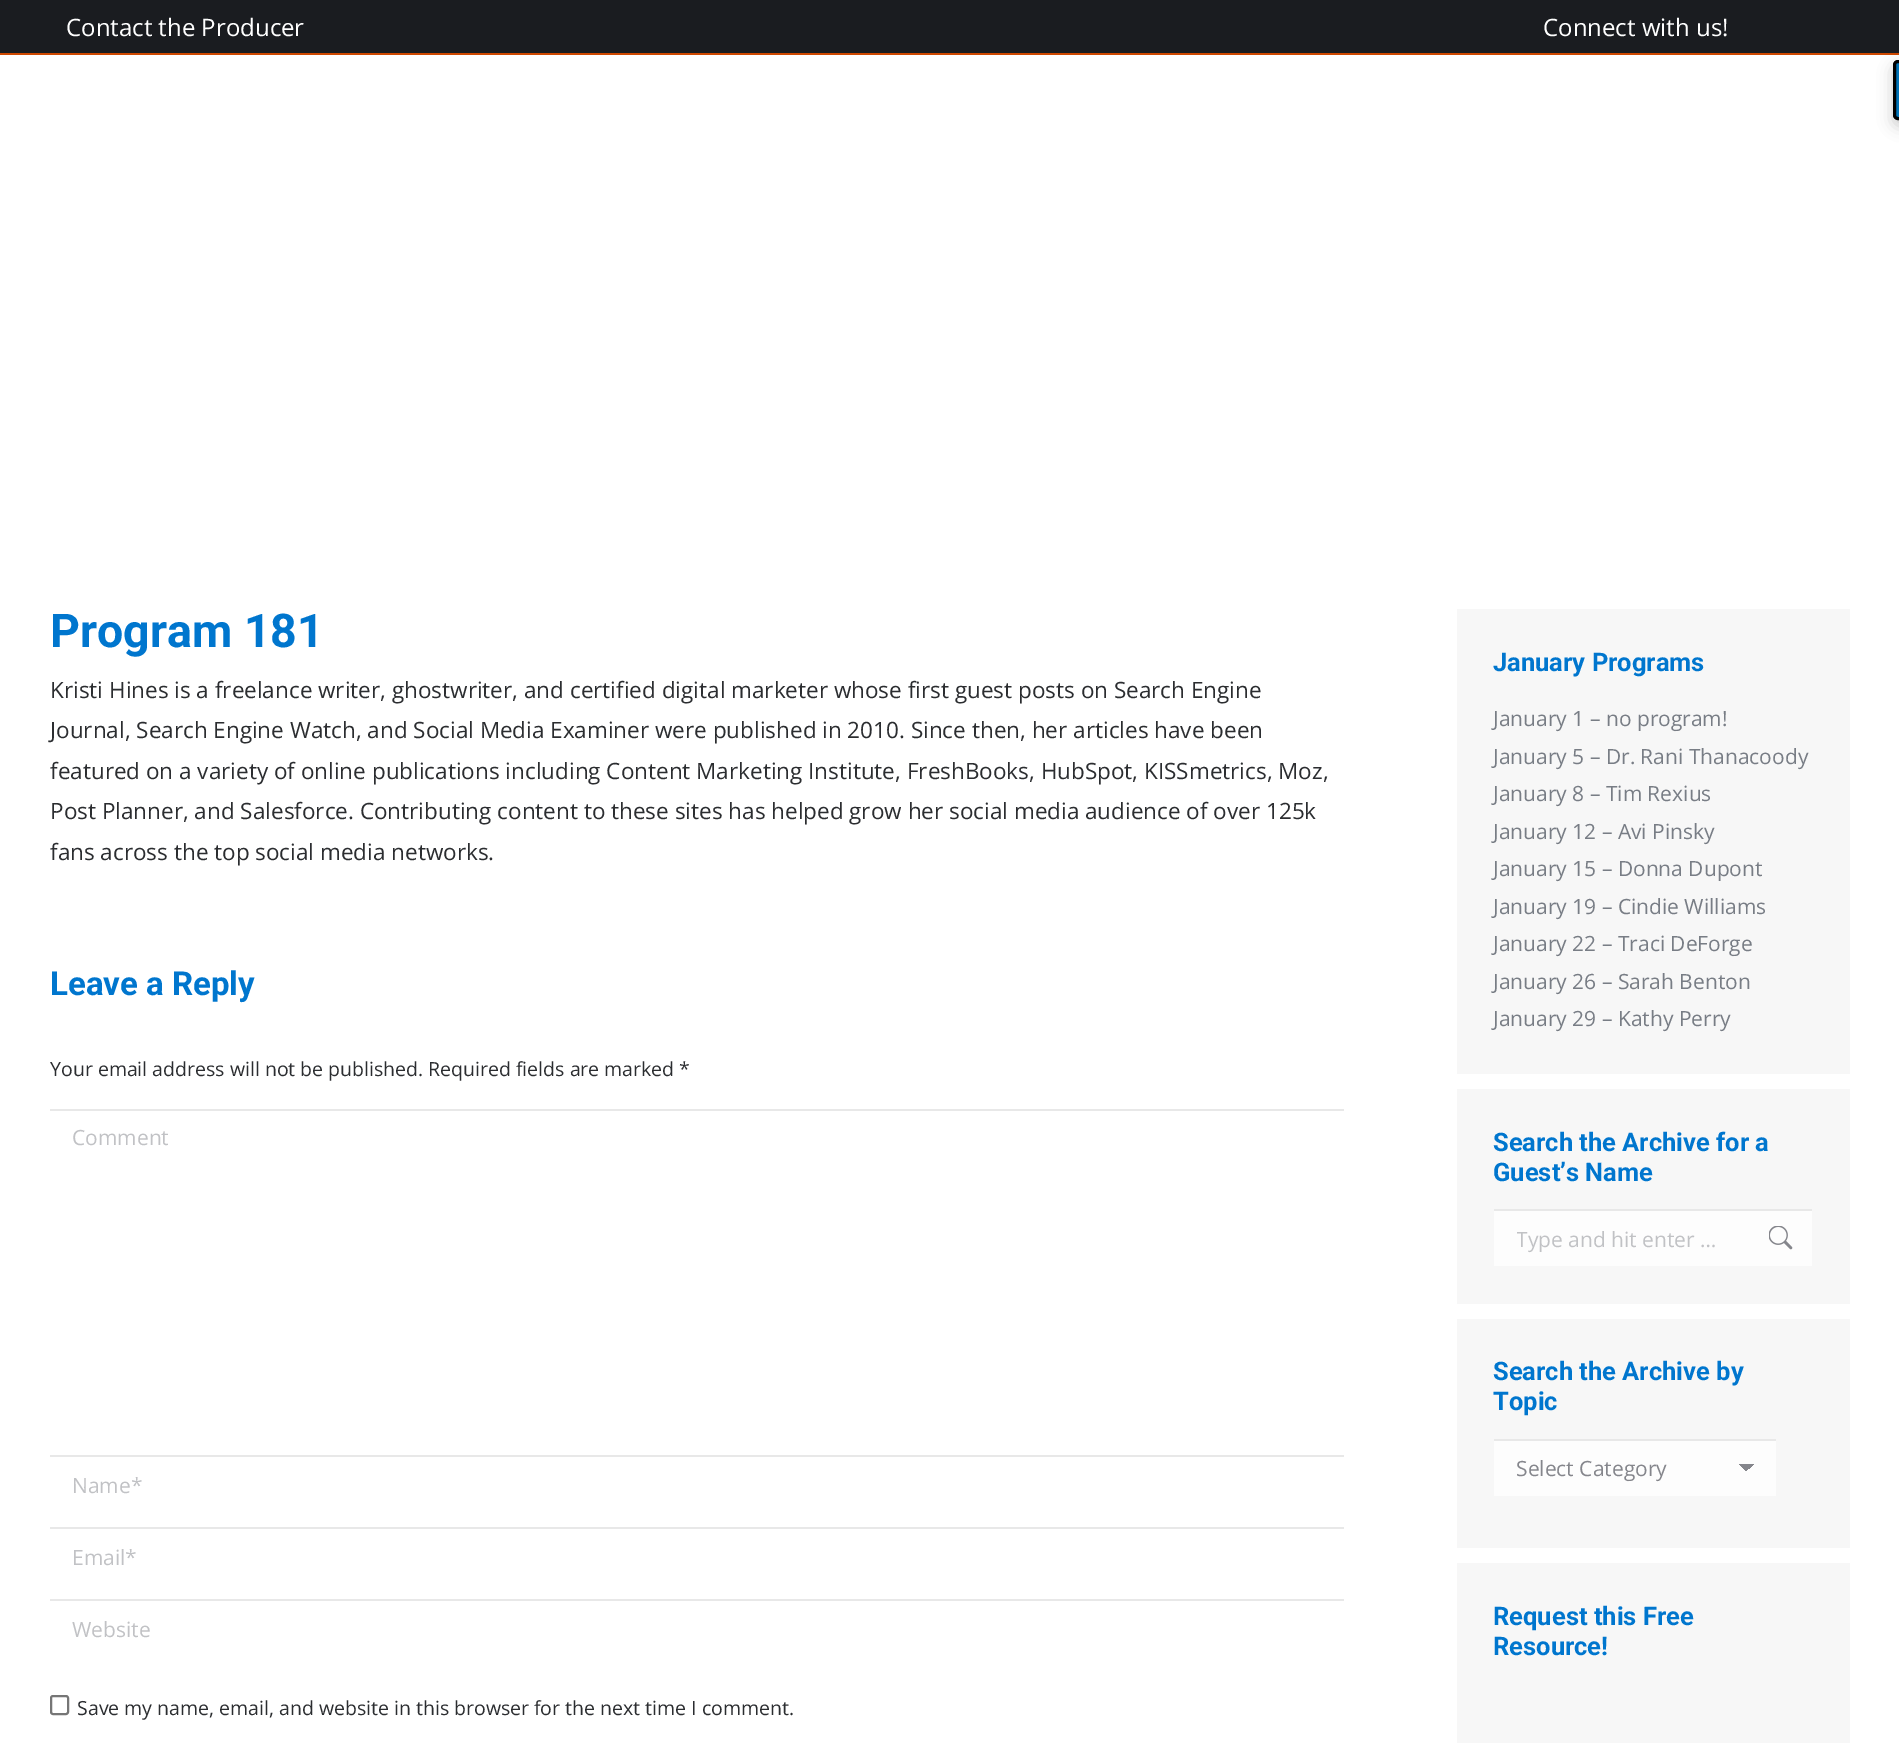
%!PS-Adobe-3.0
%%BoundingBox: 0 0 1899 1743
%%LanguageLevel: 3
%%Pages: 1
%%EndComments
%%BeginProlog
/m { moveto } bind def
/l { lineto } bind def
/c { curveto } bind def
/h { closepath } bind def
/f { fill } bind def
/S { stroke } bind def
/q { gsave } bind def
/Q { grestore } bind def
/w { setlinewidth } bind def
/fn { [ exch dup neg 0 0 3 -1 roll 0 0 ] selectfont } def
/tx { moveto show } def
/bx { rectfill } def
/al { dup .setfillconstantalpha .setstrokeconstantalpha } def
/rr { 5 dict begin { /r /h /w /y /x } { exch def } forall
  x r add y moveto x w add y 2 copy h add r arct x w add y h add x 1 index r arct
  x y h add x y r arct x y 2 copy exch w add exch r arct closepath end } def
/sh { 12 dict begin { /a /b /q /h /w /y /x } { exch def } forall gsave /was 0 def
  9 -2 -9 { dup b mul 4 div /e exch def 1 sub .425 mul 2.718 exch exp 1 add a .99 .min exch div /now exch def
    1 1 now sub 1 was sub div sub al /was now def
    w h .min e 2 mul add 0 gt { x e sub y e sub w e 2 mul add h e 2 mul add
      q e add b .6 mul add w h .min 2 div e add .min 0 .max rr fill } if } for grestore end } def
/im { 5 dict begin { /h /w /y /x /name } { exch def } forall
  gsave x y translate w h scale
  w h 8 [w 0 0 h 0 0] name (r) file false 3 colorimage grestore end } def
%%EndProlog
%%BeginSetup
<< /PageSize [1899 1743] /PageUsesTransparency true >> setpagedevice
%%EndSetup
%%Page: 1 1
0 .pushpdf14devicefilter
0 1743 translate 1 -1 scale
4 setmiterlimit
1 setgray
0 0 1899 1743 bx
0.102 0.11 0.125 setrgbcolor
0 0 1899 53 bx
/OpenSans-Regular 24 fn
1 setgray
(Contact the Producer) 66 36 tx
(Connect with us!) 1543 36 tx
0.808 0.282 0 setrgbcolor
0 53 1899 2 bx
/Roboto-Bold 46.5 fn
0 0.463 0.808 setrgbcolor
(Program 181) 50 647 tx
/OpenSans-Regular 22.5 fn
0.169 0.176 0.188 setrgbcolor
(Kristi Hines is a freelance writer, ghostwriter, and certified digital marketer whose first guest posts on Search Engine) 50 698 tx
(Journal, Search Engine Watch, and Social Media Examiner were published in 2010. Since then, her articles have been) 50 738 tx
(featured on a variety of online publications including Content Marketing Institute, FreshBooks, HubSpot, KISSmetrics, Moz,) 50 779 tx
(Post Planner, and Salesforce. Contributing content to these sites has helped grow her social media audience of over 125k) 50 819 tx
(fans across the top social media networks.) 50 860 tx
/Roboto-Bold 33 fn
0 0.463 0.808 setrgbcolor
(Leave a Reply) 50 995 tx
/OpenSans-Regular 19.5 fn
0.169 0.176 0.188 setrgbcolor
(Your email address will not be published. Required fields are marked *) 50 1076 tx
0.91 setgray
50 1109 1294 2 bx
/OpenSans-Regular 21 fn
0.757 0.761 0.773 setrgbcolor
(Comment) 72 1145 tx
0.91 setgray
50 1455 1294 2 bx
0.757 0.761 0.773 setrgbcolor
(Name*) 72 1493 tx
0.91 setgray
50 1527 1294 2 bx
0.757 0.761 0.773 setrgbcolor
(Email*) 72 1565 tx
0.91 setgray
50 1599 1294 2 bx
0.757 0.761 0.773 setrgbcolor
(Website) 72 1637 tx
0.463 setgray
2 w
51 1696 17 18 2 rr S
/OpenSans-Regular 19.5 fn
0.169 0.176 0.188 setrgbcolor
(Save my name, email, and website in this browser for the next time I comment.) 77 1715 tx
0.969 setgray
1457 609 393 465 bx
/Roboto-Bold 25.5 fn
0 0.463 0.808 setrgbcolor
(January Programs) 1493 671 tx
/OpenSans-Regular 21 fn
0.471 0.49 0.522 setrgbcolor
(January 1 – no program!) 1493 726 tx
(January 5 – Dr. Rani Thanacoody) 1493 764 tx
(January 8 – Tim Rexius) 1493 801 tx
(January 12 – Avi Pinsky) 1493 839 tx
(January 15 – Donna Dupont) 1493 876 tx
(January 19 – Cindie Williams) 1493 914 tx
(January 22 – Traci DeForge) 1493 951 tx
(January 26 – Sarah Benton) 1493 989 tx
(January 29 – Kathy Perry) 1493 1026 tx
0.969 setgray
1457 1089 393 215 bx
/Roboto-Bold 25.5 fn
0 0.463 0.808 setrgbcolor
(Search the Archive for a) 1493 1151 tx
(Guest’s Name) 1493 1181 tx
0.992 setgray
1494 1211 318 55 bx
0.91 setgray
1494 1209 318 2 bx
q
1517 1224 273 29 rectclip
/OpenSans-Regular 21 fn
0.757 0.761 0.773 setrgbcolor
(Type and hit enter …) 1516 1247 tx
Q
(image0.raw) 1769 1226 24 24 im
0.969 setgray
1457 1319 393 229 bx
0 0.463 0.808 setrgbcolor
(Search the Archive by) 1493 1380 tx
(Topic) 1493 1410 tx
0.992 setgray
1494 1441 282 55 bx
q 1746 1464 m 1754 1464 l 1754 1471 l 1746 1471 l h clip newpath
<< /ShadingType 2 /ColorSpace /DeviceRGB /Coords [1746 1464 1754 1472] /Extend [true true] /Function << /FunctionType 3 /Domain [0 1] /Functions [<< /FunctionType 2 /Domain [0 1] /C0 [0.522 0.525 0.549] /C1 [0.522 0.525 0.549] /N 1 >> << /FunctionType 2 /Domain [0 1] /C0 [0.992 0.992 0.992] /C1 [0.992 0.992 0.992] /N 1 >>] /Bounds [0.5] /Encode [0 1 0 1] >> >> shfill Q
q 1739 1464 m 1746 1464 l 1746 1472 l 1739 1472 l h clip newpath
<< /ShadingType 2 /ColorSpace /DeviceRGB /Coords [1739 1472 1746 1464] /Extend [true true] /Function << /FunctionType 3 /Domain [0 1] /Functions [<< /FunctionType 2 /Domain [0 1] /C0 [0.992 0.992 0.992] /C1 [0.992 0.992 0.992] /N 1 >> << /FunctionType 2 /Domain [0 1] /C0 [0.522 0.525 0.549] /C1 [0.522 0.525 0.549] /N 1 >>] /Bounds [0.5] /Encode [0 1 0 1] >> >> shfill Q
0.91 setgray
1494 1439 282 2 bx
/OpenSans-Regular 21 fn
0.522 0.525 0.549 setrgbcolor
(Select Category) 1516 1476 tx
0.969 setgray
1457 1563 393 180 bx
/Roboto-Bold 25.5 fn
0 0.463 0.808 setrgbcolor
(Request this Free) 1493 1625 tx
(Resource!) 1493 1655 tx
0 setgray
1893 66 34 60 5 7.5 0.2 sh
0 0.451 0.718 setrgbcolor
1898 61.5 m 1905.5 61.5 l 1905.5 118.5 l 1898 118.5 l 1896 118.5 1894.5 117 1894.5 115 c 1894.5 65 l 1894.5 63 1896 61.5 1898 61.5 c h q f Q
0 setgray
3 w
S
.poppdf14devicefilter showpage
%%EOF
